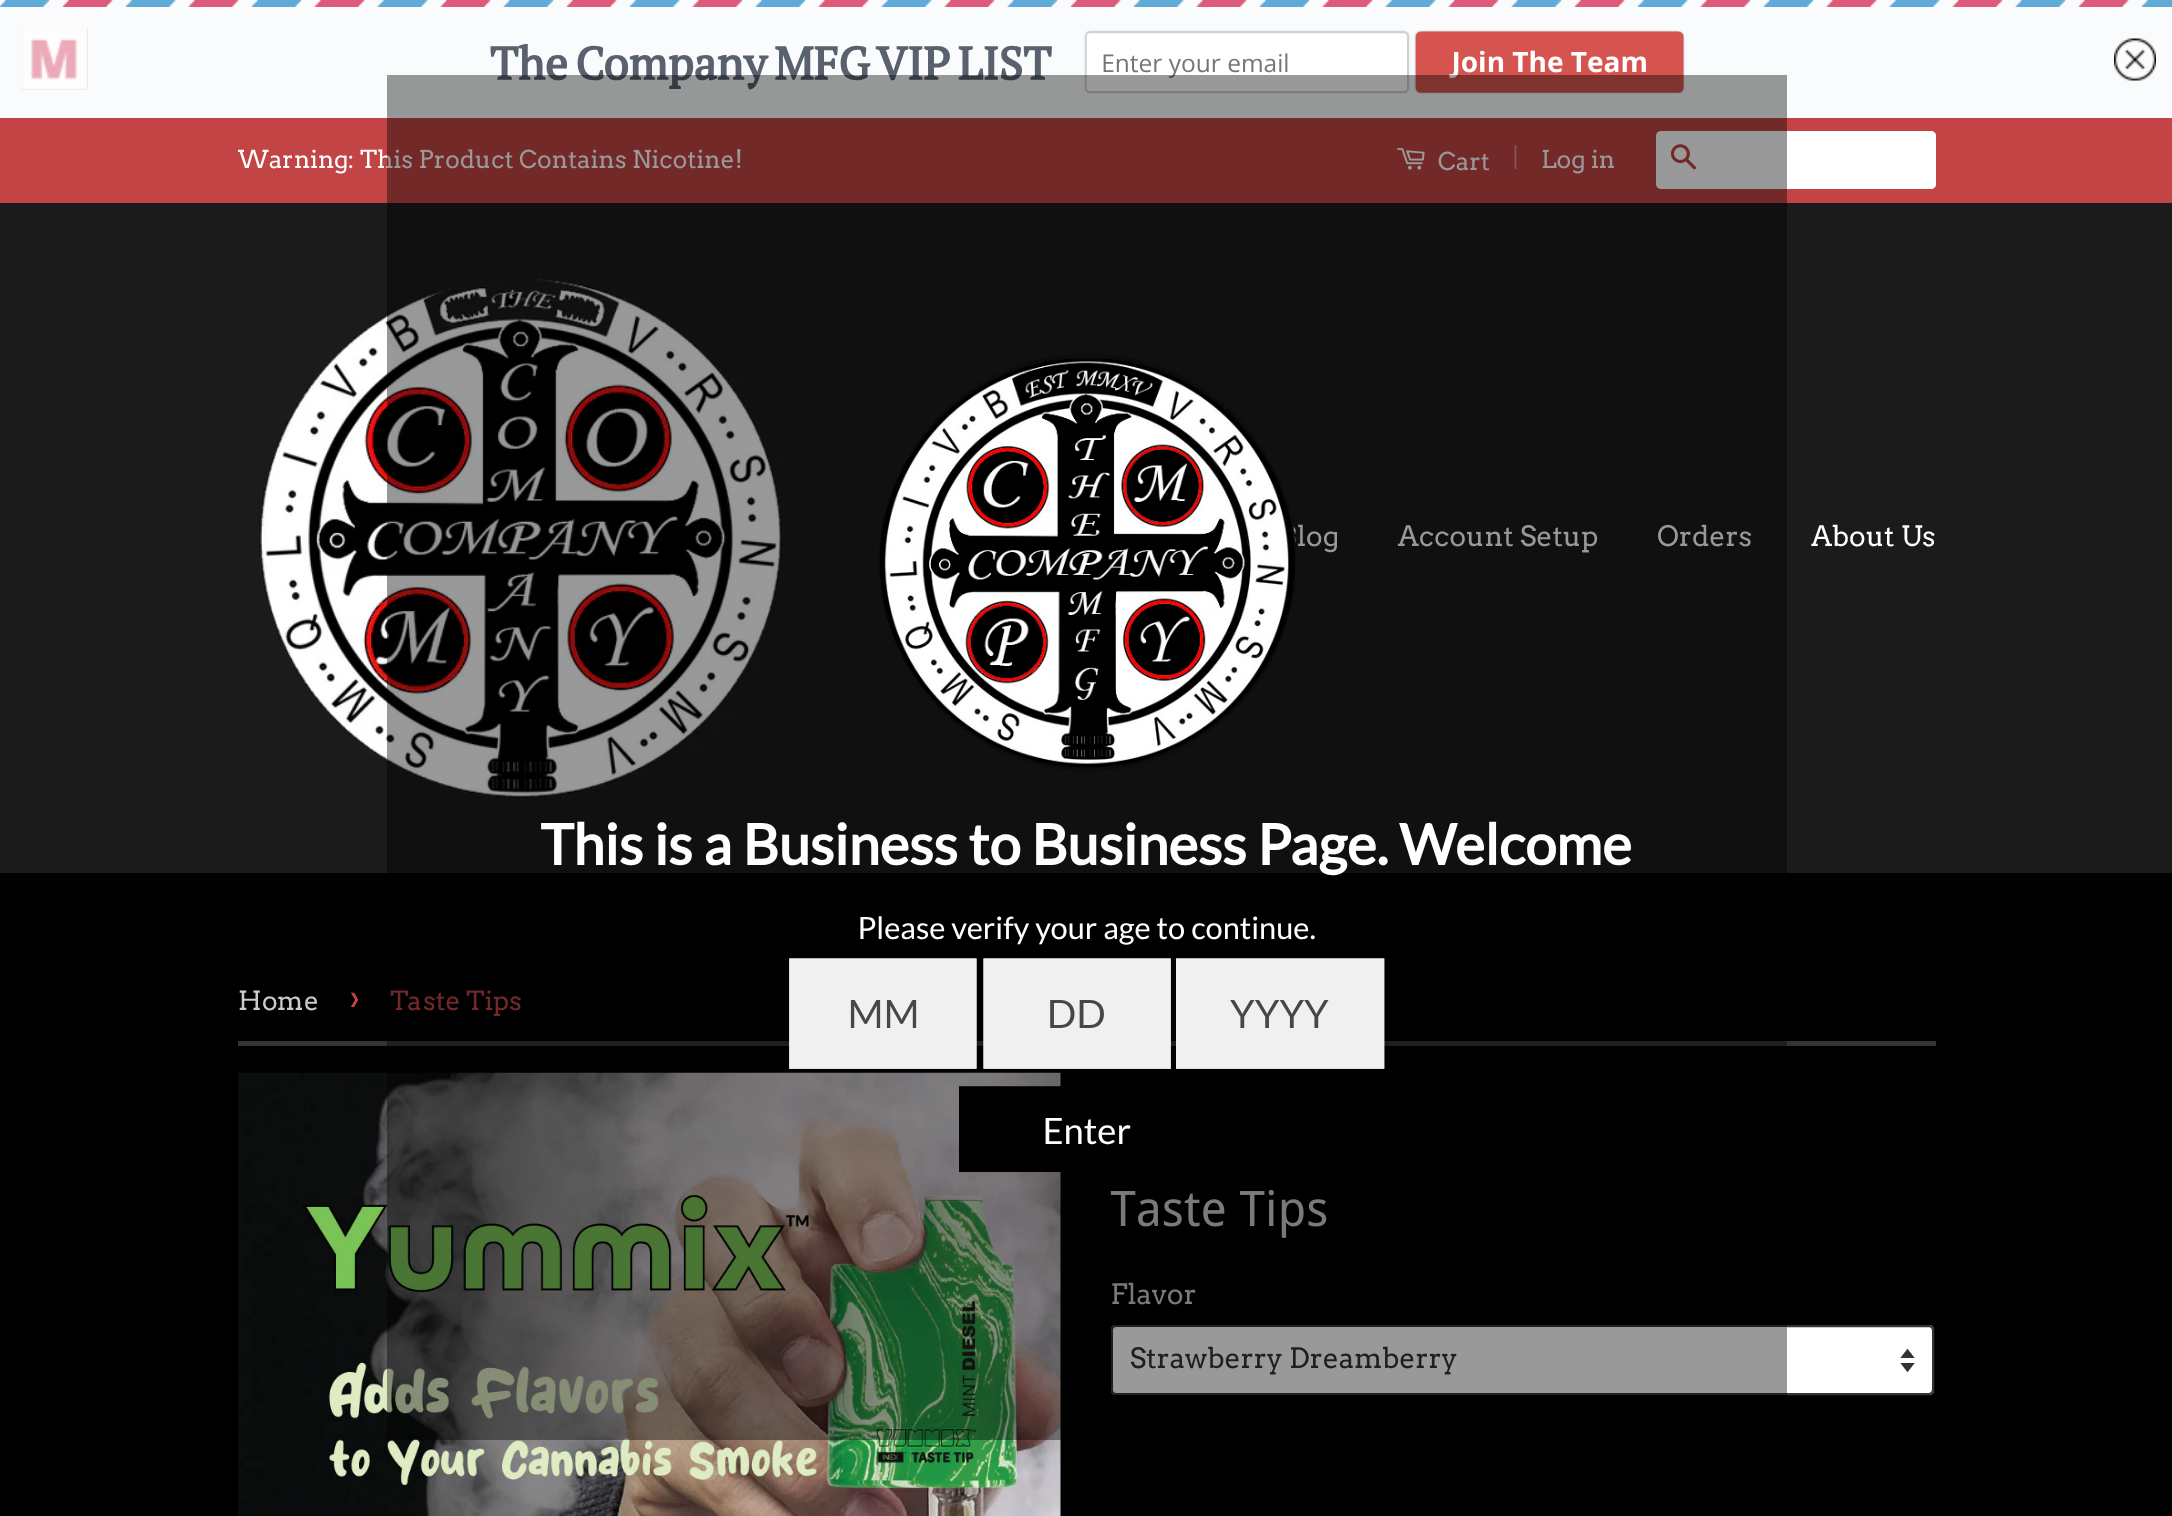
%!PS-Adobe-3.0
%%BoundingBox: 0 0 2172 1516
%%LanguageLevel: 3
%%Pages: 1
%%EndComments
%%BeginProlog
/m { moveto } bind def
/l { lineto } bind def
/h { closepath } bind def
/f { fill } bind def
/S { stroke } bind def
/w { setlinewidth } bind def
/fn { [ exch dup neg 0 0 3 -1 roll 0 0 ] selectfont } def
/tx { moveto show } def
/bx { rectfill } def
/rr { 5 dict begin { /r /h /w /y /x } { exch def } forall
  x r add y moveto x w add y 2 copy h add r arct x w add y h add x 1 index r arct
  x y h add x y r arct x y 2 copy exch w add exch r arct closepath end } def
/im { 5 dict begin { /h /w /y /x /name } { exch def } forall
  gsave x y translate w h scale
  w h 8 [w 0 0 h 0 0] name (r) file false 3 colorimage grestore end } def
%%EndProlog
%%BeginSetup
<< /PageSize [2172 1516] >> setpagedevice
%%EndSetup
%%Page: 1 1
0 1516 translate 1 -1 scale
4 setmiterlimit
0 setgray
0 0 2172 1516 bx
(image0.raw) 0 0 2172 118 im
0.761 0.267 0.267 setrgbcolor
0 118 2172 85 bx
/Arvo-Regular 24.5 fn
1 setgray
(Warning: This Product Contains Nicotine!) 238 168 tx
(image2.raw) 1397 148 28 22 im
(Cart) 1438 170 tx
0.855 0.561 0.561 setrgbcolor
(|) 1513 166 tx
1 setgray
(Log in) 1541 168 tx
1656 131 280 58 5 rr f
(image3.raw) 1670 144 27 26 im
0.106 setgray
0 203 2172 670 bx
(image4.raw) 258 278 524 520 im
/Arvo-Regular 28 fn
1 setgray
(log) 1297 546 tx
(Account Setup) 1398 546 tx
(Orders) 1657 546 tx
0.204 setgray
238 1041 1698 5 bx
/Arvo-Regular 26.25 fn
0.761 0.267 0.267 setrgbcolor
(Taste Tips) 390 1010 tx
(image5.raw) 238 1072 823 444 im
/DroidSans-Regular 49 fn
0.8 setgray
(Taste Tips) 1110 1226 tx
/Arvo-Bold 28 fn
(Flavor) 1110 1304 tx
1 setgray
1111 1325 823 70 5 rr f
0.2 setgray
1900.5 1363 m 1907.5 1372 l 1914.5 1363 l h 1907.5 1349 m 1900.5 1358 l 1914.5 1358 l h f
0.204 setgray
2 w
1112 1326 821 68 4 rr S
/Arvo-Regular 28 fn
0.2 setgray
(Strawberry Dreamberry) 1130 1368 tx
(image1.raw) 387 75 1400 1365 im
1 setgray
(About Us) 1811 546 tx
/Arvo-Regular 26.25 fn
0.8 setgray
(Home) 238 1010 tx
/Arvo-Regular 37 fn
0.761 0.267 0.267 setrgbcolor
(›) 349 1010 tx
showpage
%%EOF
